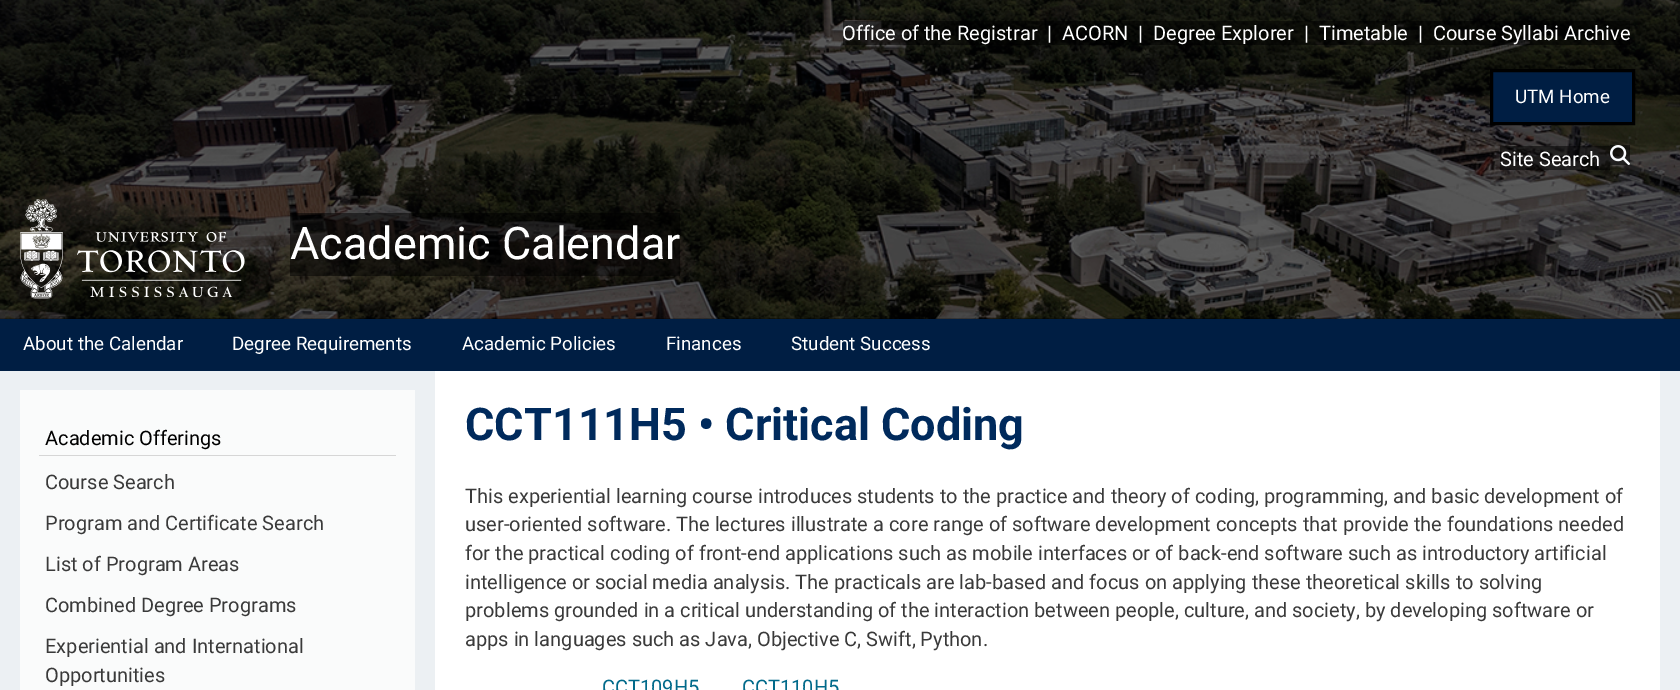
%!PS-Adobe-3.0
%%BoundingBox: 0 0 1680 690
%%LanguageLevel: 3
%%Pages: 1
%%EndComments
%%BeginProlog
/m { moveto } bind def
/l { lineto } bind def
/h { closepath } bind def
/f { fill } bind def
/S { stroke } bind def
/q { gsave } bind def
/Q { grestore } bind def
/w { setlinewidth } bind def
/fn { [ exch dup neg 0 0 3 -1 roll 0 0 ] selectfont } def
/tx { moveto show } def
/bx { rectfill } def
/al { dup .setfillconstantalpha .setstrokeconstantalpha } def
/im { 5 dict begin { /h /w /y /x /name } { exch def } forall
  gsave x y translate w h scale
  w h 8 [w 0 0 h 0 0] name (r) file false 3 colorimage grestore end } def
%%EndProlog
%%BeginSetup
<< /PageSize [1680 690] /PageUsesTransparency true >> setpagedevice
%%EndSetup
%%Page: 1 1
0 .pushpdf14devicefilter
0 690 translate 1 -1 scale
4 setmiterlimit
1 setgray
0 0 1680 690 bx
(image0.raw) 0 0 1680 319 im
0.5 al
0 setgray
843 21 195 24 bx
/Roboto-Regular 20 fn
1 al
1 setgray
(Office of the Registrar) 842 40 tx
0.5 al
0 setgray
1038 21 25 24 bx
1 al
1 setgray
(|) 1047 40 tx
0.5 al
0 setgray
1063 21 66 24 bx
1 al
1 setgray
(ACORN) 1062 40 tx
0.5 al
0 setgray
1129 21 25 24 bx
1 al
1 setgray
(|) 1138 40 tx
0.5 al
0 setgray
1154 21 140 24 bx
1 al
1 setgray
(Degree Explorer) 1153 40 tx
0.5 al
0 setgray
1294 21 25 24 bx
1 al
1 setgray
(|) 1304 40 tx
0.5 al
0 setgray
1319 21 89 24 bx
1 al
1 setgray
(Timetable) 1319 40 tx
0.5 al
0 setgray
1408 21 25 24 bx
1 al
1 setgray
(|) 1418 40 tx
0.5 al
0 setgray
1433 21 197 24 bx
1 al
1 setgray
(Course Syllabi Archive) 1433 40 tx
0 0.118 0.263 setrgbcolor
1491.5 70.5 m 1633.5 70.5 l 1633.5 123.5 l 1491.5 123.5 l h q f Q
0 setgray
3 w
S
/Roboto-Regular 18.75 fn
1 setgray
(UTM Home) 1515 103 tx
0.5 al
0 setgray
1500 146 110 24 bx
/Roboto-Regular 20 fn
1 al
1 setgray
(Site Search) 1500 166 tx
0.5 al
0 setgray
1610 145 20 20 bx
1 al
(image1.raw) 1610 145 20 20 im
(image2.raw) 20 199 225 100 im
0.5 al
290 213 390 63 bx
/Roboto-Regular 45 fn
1 al
1 setgray
(Academic Calendar) 290 259 tx
0 0.118 0.263 setrgbcolor
0 319 1680 52 bx
/Roboto-Regular 18.75 fn
1 setgray
(About the Calendar) 23 350 tx
(Degree Requirements) 232 350 tx
(Academic Policies) 462 350 tx
(Finances) 666 350 tx
(Student Success) 791 350 tx
0.925 0.941 0.953 setrgbcolor
0 371 1680 319 bx
0.98 0.984 0.984 setrgbcolor
20 390 395 300 bx
0.839 setgray
39 455 357 1 bx
/Roboto-Regular 20 fn
0 setgray
(Academic Offerings) 45 445 tx
0.227 setgray
(Course Search) 45 489 tx
(Program and Certificate Search) 45 530 tx
(List of Program Areas) 45 571 tx
(Combined Degree Programs) 45 612 tx
(Experiential and International) 45 653 tx
(Opportunities) 45 682 tx
1 setgray
435 371 1225 319 bx
/Roboto-Bold 45 fn
0 0.165 0.361 setrgbcolor
(CCT111H5 • Critical Coding) 465 440 tx
/Roboto-Regular 20 fn
0.227 setgray
(This experiential learning course introduces students to the practice and theory of coding, programming, and basic development of) 465 503 tx
(user-oriented software. The lectures illustrate a core range of software development concepts that provide the foundations needed) 465 531 tx
(for the practical coding of front-end applications such as mobile interfaces or of back-end software such as introductory artificial) 465 560 tx
(intelligence or social media analysis. The practicals are lab-based and focus on applying these theoretical skills to solving) 465 589 tx
(problems grounded in a critical understanding of the interaction between people, culture, and society, by developing software or) 465 617 tx
(apps in languages such as Java, Objective C, Swift, Python.) 465 646 tx
0.004 0.416 0.541 setrgbcolor
(CCT109H5) 602 694 tx
(CCT110H5) 742 694 tx
.poppdf14devicefilter showpage
%%EOF
